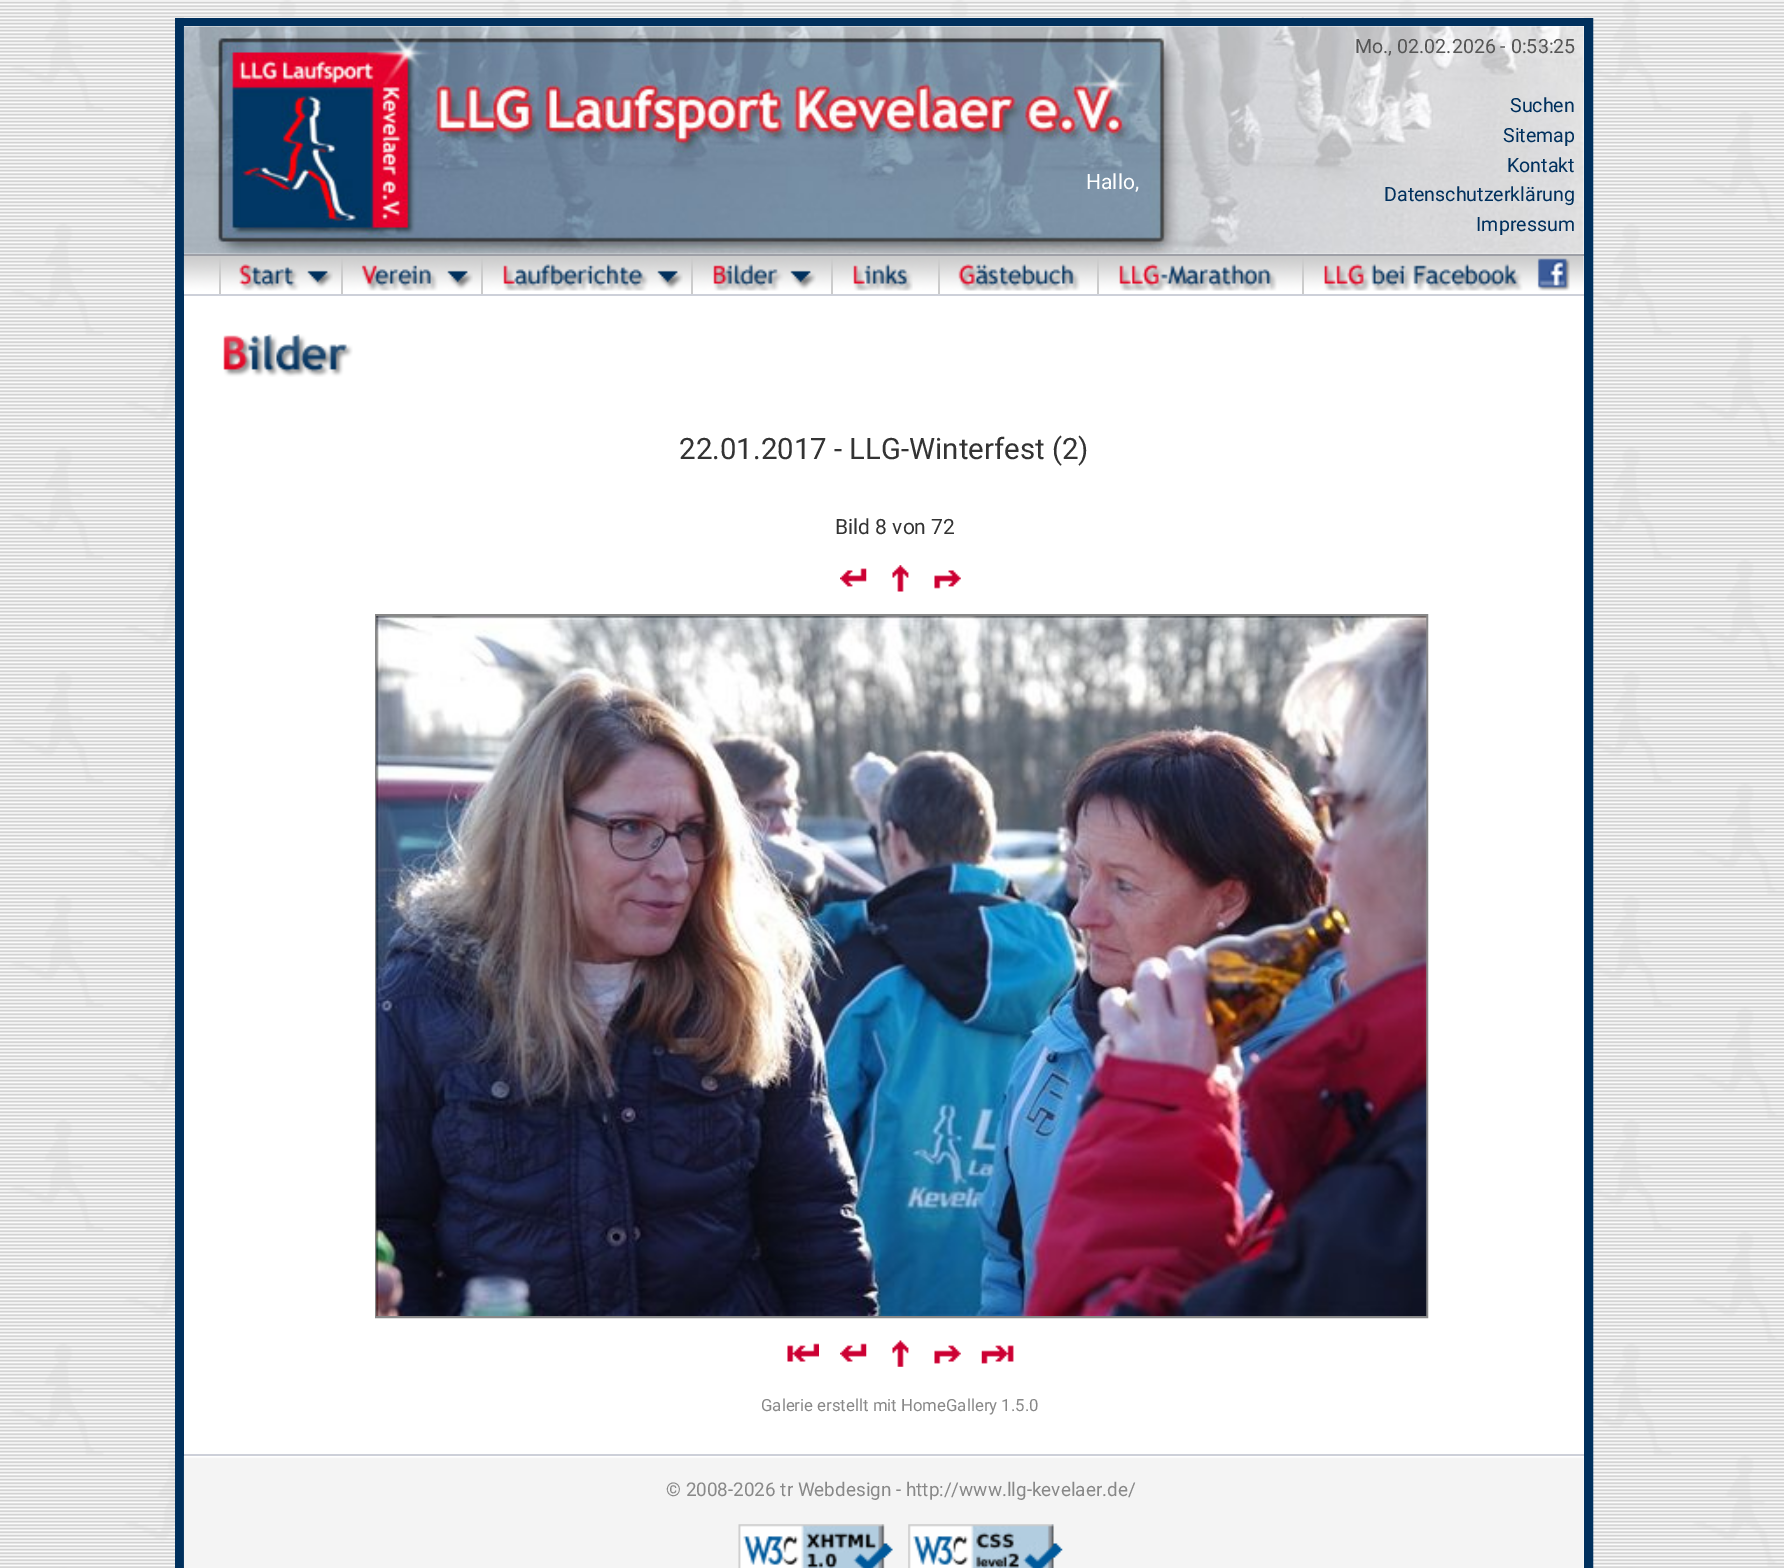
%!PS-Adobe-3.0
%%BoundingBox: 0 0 1784 1568
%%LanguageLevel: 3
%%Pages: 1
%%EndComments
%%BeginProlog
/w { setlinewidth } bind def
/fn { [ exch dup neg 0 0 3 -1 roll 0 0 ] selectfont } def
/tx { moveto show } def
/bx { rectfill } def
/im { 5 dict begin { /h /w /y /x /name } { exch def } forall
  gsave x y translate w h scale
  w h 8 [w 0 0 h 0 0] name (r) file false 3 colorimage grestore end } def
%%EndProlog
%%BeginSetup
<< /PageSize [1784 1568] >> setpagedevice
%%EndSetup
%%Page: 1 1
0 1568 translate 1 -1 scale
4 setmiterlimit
1 setgray
0 0 1784 1568 bx
(image0.raw) 0 0 1784 1568 im
(image1.raw) 184 17 1400 1 im
0 0.188 0.365 setrgbcolor
9 w
179.5 22.5 1409 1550 rectstroke
1 setgray
184 26 1400 1542 bx
(image2.raw) 183 26 1401 228 im
(image3.raw) 183 255 1401 36 im
0.62 0.627 0.655 setrgbcolor
184 254 1400 2 bx
0.804 0.816 0.851 setrgbcolor
184 294 1400 2 bx
(image4.raw) 239 264 94 27 im
0.8 setgray
219 256 2 38 bx
(image5.raw) 361 265 112 26 im
341 256 2 38 bx
(image6.raw) 503 264 180 27 im
481 256 2 38 bx
(image7.raw) 713 264 103 27 im
691 256 2 38 bx
(image8.raw) 853 264 60 27 im
831 256 2 38 bx
(image9.raw) 958 264 122 27 im
938 256 2 38 bx
(image10.raw) 1119 264 158 27 im
1097 256 2 38 bx
(image11.raw) 1324 258 246 33 im
1302 256 2 38 bx
/Roboto-Regular 21 fn
1 setgray
(Hallo,) 1086 189 tx
/Roboto-Regular 19.6 fn
0.333 setgray
(Mo., 02.02.2026 - 0:53:25) 1355 53 tx
0 0.188 0.365 setrgbcolor
(Suchen) 1510 112 tx
(Sitemap) 1503 142 tx
(Kontakt) 1507 172 tx
(Datenschutzerklärung) 1384 201 tx
(Impressum) 1476 231 tx
(image12.raw) 223 334 130 43 im
/Roboto-Regular 29.4 fn
0.2 setgray
(22.01.2017 - LLG-Winterfest \(2\)) 679 459 tx
/Roboto-Regular 21 fn
(Bild 8 von 72) 835 534 tx
(image13.raw) 840 568 27 19 im
(image14.raw) 892 565 17 27 im
(image15.raw) 934 570 27 19 im
0.533 setgray
2 w
376 615 1051 702 rectstroke
(image16.raw) 376 616 1051 700 im
(image17.raw) 787 1343 32 19 im
(image18.raw) 840 1343 27 19 im
(image19.raw) 892 1340 17 27 im
(image20.raw) 934 1345 27 19 im
(image21.raw) 981 1345 33 19 im
/Roboto-Regular 16.75 fn
(Galerie erstellt mit HomeGallery 1.5.0) 761 1411 tx
(image22.raw) 183 1456 1401 112 im
0.804 0.816 0.851 setrgbcolor
184 1454 1400 2 bx
/Roboto-Regular 18.9 fn
0.533 setgray
(© 2008-2026 tr Webdesign - http://www.llg-kevelaer.de/) 666 1496 tx
(image23.raw) 738 1524 155 44 im
(image24.raw) 908 1524 155 44 im
showpage
%%EOF
